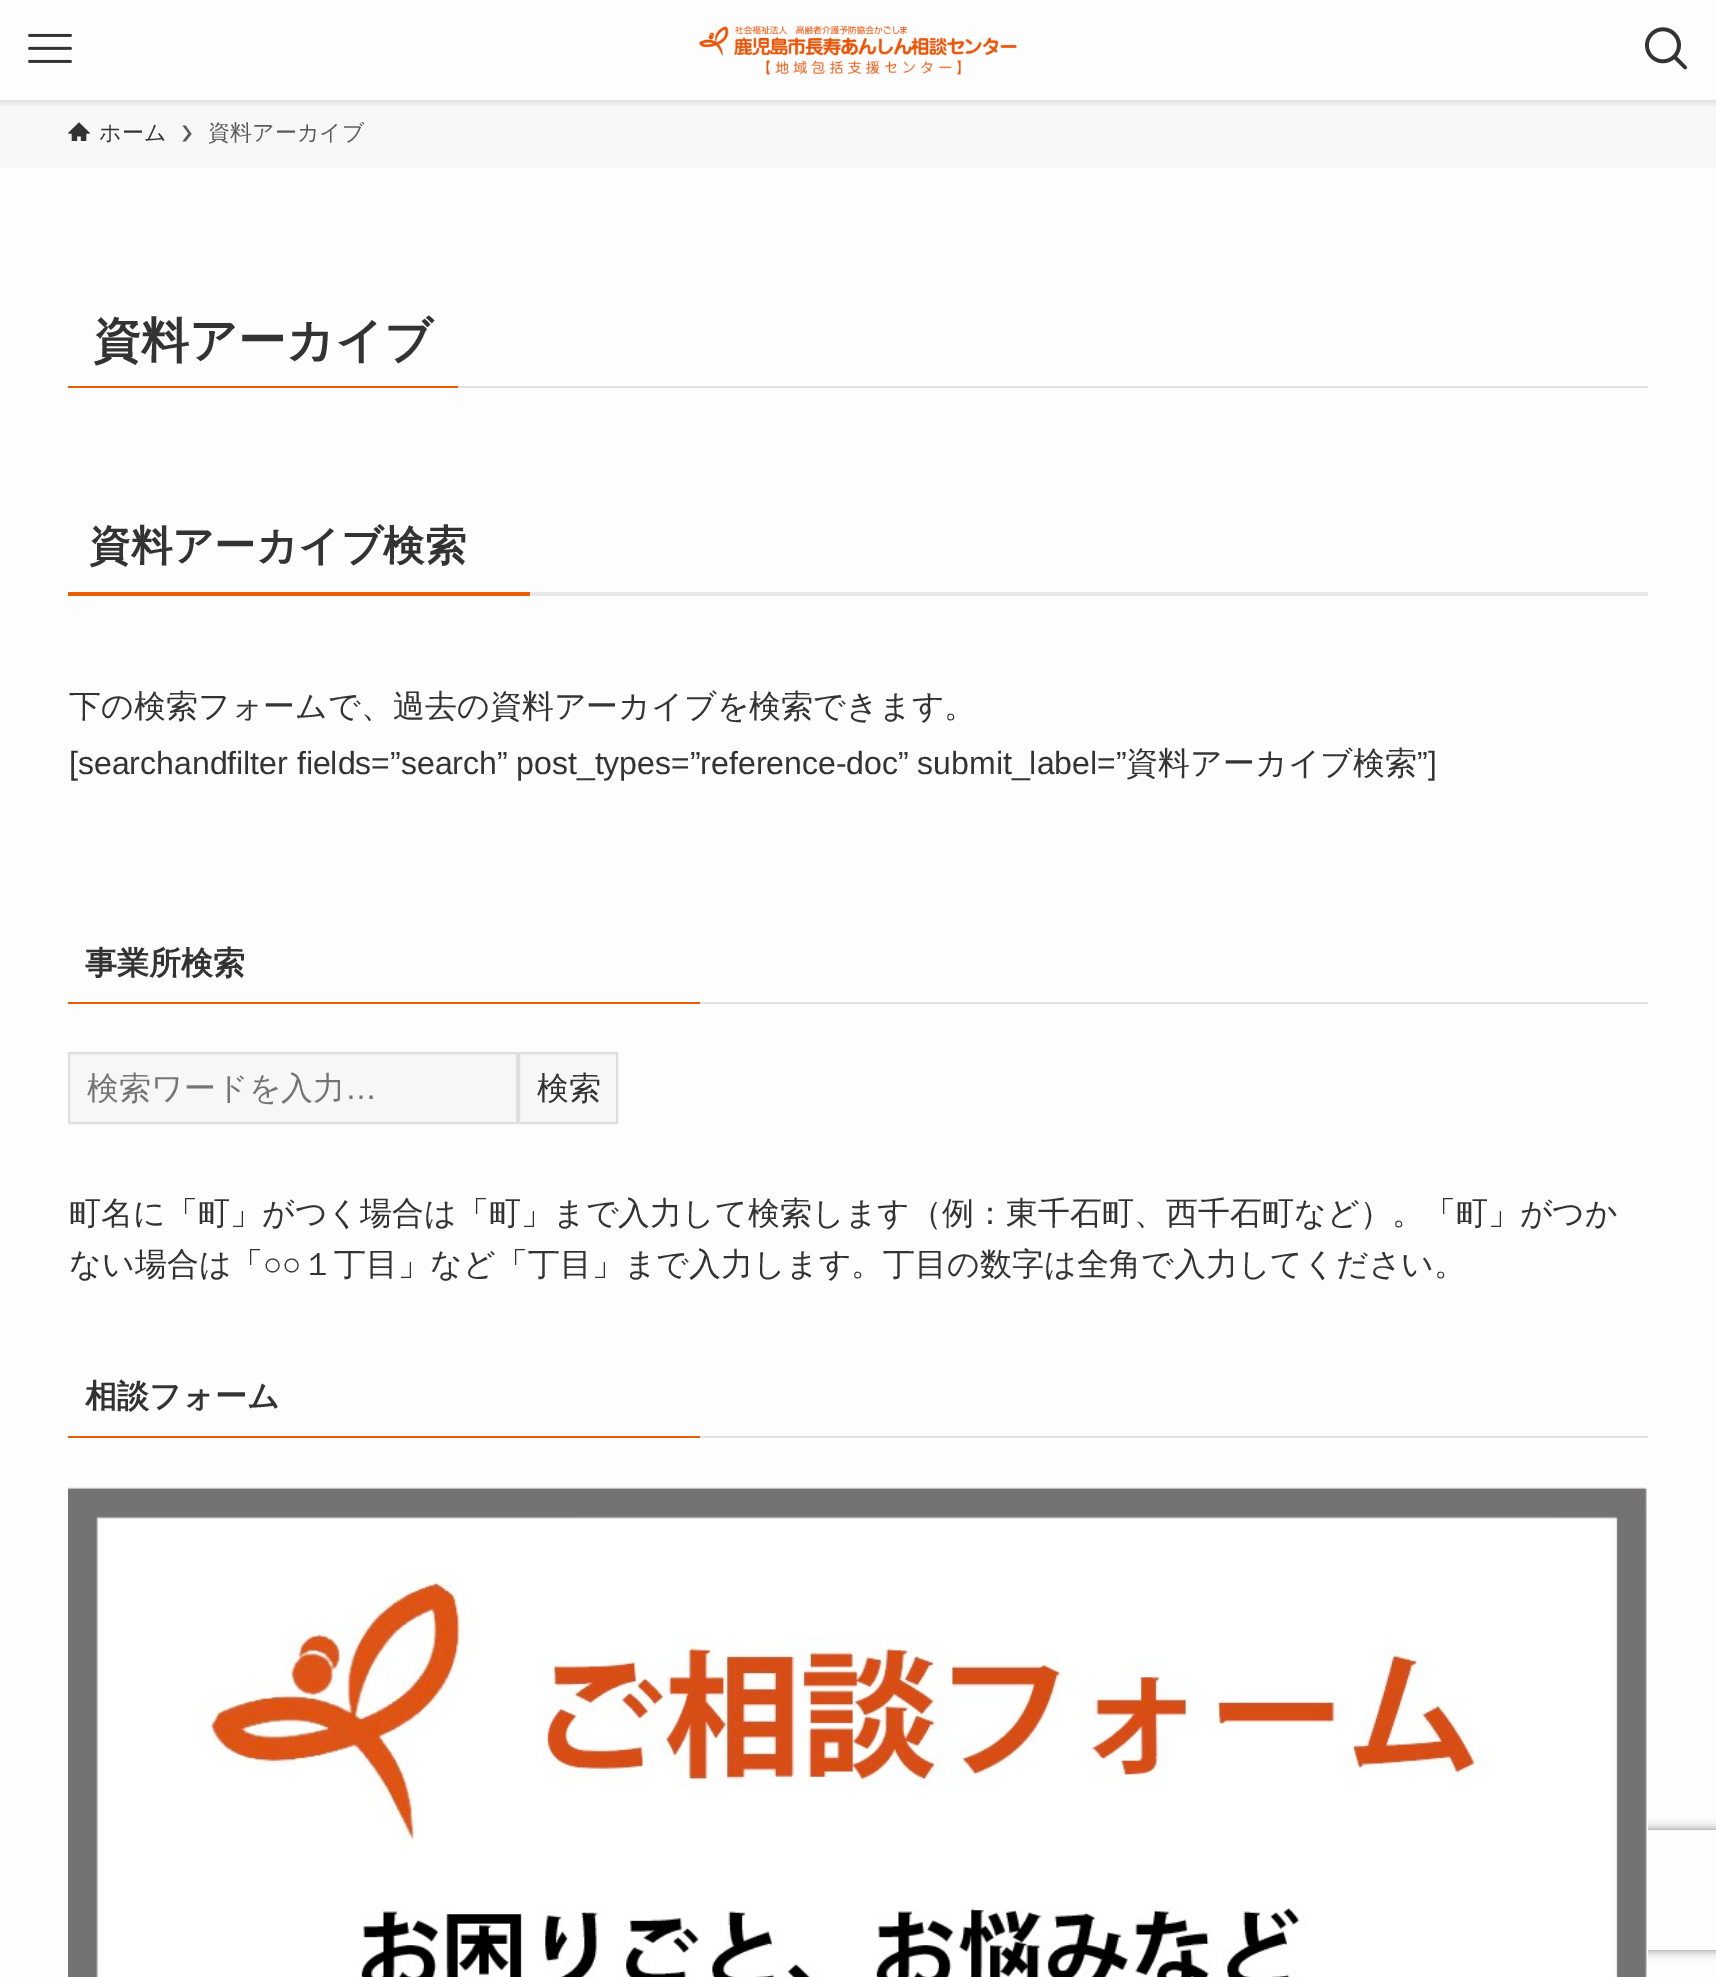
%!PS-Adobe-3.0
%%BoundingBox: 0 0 1716 1977
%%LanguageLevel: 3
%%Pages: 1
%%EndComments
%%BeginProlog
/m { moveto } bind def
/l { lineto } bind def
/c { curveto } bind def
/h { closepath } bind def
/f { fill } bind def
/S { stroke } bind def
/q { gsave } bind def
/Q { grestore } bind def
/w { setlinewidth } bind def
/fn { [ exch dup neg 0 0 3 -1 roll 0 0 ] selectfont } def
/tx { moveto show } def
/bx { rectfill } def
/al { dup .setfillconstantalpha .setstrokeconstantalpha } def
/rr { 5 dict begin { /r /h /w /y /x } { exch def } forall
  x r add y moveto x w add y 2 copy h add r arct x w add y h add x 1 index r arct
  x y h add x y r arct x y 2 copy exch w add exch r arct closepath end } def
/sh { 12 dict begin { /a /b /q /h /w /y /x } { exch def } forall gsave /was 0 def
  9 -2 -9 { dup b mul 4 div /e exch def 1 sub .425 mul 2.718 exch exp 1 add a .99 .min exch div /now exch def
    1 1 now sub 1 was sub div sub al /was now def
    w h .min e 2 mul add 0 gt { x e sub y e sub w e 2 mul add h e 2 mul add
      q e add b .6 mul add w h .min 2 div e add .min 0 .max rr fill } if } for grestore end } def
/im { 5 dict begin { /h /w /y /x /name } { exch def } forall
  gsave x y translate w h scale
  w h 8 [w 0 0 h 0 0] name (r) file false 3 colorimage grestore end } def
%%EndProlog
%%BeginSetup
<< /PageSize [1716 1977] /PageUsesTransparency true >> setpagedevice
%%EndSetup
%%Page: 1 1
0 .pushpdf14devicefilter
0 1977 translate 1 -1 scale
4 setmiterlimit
0.992 setgray
0 0 1716 1977 bx
0.969 setgray
0 100 1716 68 bx
q
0 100 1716 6 rectclip
0 setgray
0 2 1716 100 0 4 0.12 sh
Q
(image0.raw) 28 33 44 30 im
(image1.raw) 699 26 319 49 im
(image2.raw) 1645 27 43 43 im
(image3.raw) 68 122 22 19 im
/WenQuanYiZenHei-Medium 22 fn
0.2 setgray
(ホーム) 99 140 tx
0.353 setgray
185.5 125.5 m 182.5 125.5 l 188.5 133.5 l 182.5 141.5 l 185.5 141.5 l 191.5 134 l h f
(資料アーカイブ) 208 140 tx
0.886 setgray
458 386 1190 2 bx
0.918 0.365 0 setrgbcolor
68 386 390 2 bx
/WenQuanYiZenHei-Bold 48 fn
0.2 setgray
(資料アーカイブ) 93 357 tx
/WenQuanYiZenHei-Bold 41.5 fn
(資料アーカイブ検索) 89 560 tx
0.918 0.365 0 setrgbcolor
68 592 462 4 bx
0.91 setgray
530 592 1118 4 bx
/WenQuanYiZenHei-Medium 32 fn
0.2 setgray
(下の検索フォームで、過去の資料アーカイブを検索できます。) 69 717 tx
/LiberationSans-Regular 32 fn
([searchandfilter fields=”search” post_types=”reference-doc” submit_label=”) 69 774 tx
/WenQuanYiZenHei-Medium 32 fn
(資料アーカイブ検索) 1126 774 tx
/LiberationSans-Regular 32 fn
(”]) 1417 774 tx
/WenQuanYiZenHei-Bold 32 fn
(事業所検索) 85 974 tx
0.918 0.365 0 setrgbcolor
68 1002 632 2 bx
0.886 setgray
700 1002 948 2 bx
0.969 setgray
69 1053 m 517 1053 l 517 1123 l 69 1123 l h q f Q
0.875 setgray
2 w
S
/WenQuanYiZenHei-Medium 32 fn
0.459 setgray
(検索ワードを入力) 87 1099 tx
/LiberationSans-Regular 32 fn
(…) 345 1099 tx
0.969 setgray
519 1053 m 617 1053 l 617 1123 l 519 1123 l h q f Q
0.875 setgray
S
/WenQuanYiZenHei-Medium 32 fn
0.2 setgray
(検索) 537 1099 tx
(町名に「町」がつく場合は「町」まで入力して検索します（例：東千石町、西千石町など）。「町」がつか) 69 1224 tx
(ない場合は「) 69 1275 tx
/LiberationSans-Regular 32 fn
(○○) 263 1275 tx
/WenQuanYiZenHei-Medium 32 fn
(１丁目」など「丁目」まで入力します。丁目の数字は全角で入力してください。) 302 1275 tx
/WenQuanYiZenHei-Bold 32 fn
(相談フォーム) 85 1407 tx
0.918 0.365 0 setrgbcolor
68 1436 632 2 bx
0.886 setgray
700 1436 948 2 bx
q
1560 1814 m 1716 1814 l 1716 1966 l 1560 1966 l h 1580 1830 m 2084 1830 l 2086 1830 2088 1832 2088 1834 c 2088 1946 l 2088 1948 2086 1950 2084 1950 c 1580 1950 l 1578 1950 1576 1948 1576 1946 c 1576 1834 l 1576 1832 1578 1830 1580 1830 c h eoclip newpath
0.502 setgray
1576 1830 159 120 4 5 1 sh
Q
(image4.raw) 68 1487 1580 490 im
.poppdf14devicefilter showpage
%%EOF
